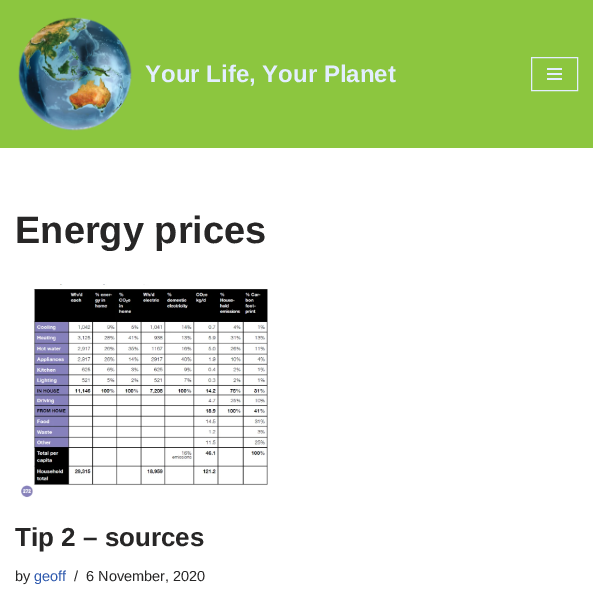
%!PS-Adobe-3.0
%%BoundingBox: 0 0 593 605
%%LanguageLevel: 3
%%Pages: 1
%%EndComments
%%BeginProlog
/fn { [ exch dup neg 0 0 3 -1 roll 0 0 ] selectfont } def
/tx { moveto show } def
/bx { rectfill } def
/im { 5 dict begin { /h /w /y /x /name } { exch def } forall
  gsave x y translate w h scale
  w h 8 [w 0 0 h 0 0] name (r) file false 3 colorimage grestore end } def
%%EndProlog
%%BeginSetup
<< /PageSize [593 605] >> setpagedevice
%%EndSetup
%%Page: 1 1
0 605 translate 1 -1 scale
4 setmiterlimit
1 setgray
0 0 593 605 bx
0.549 0.776 0.247 setrgbcolor
0 0 593 148 bx
(image0.raw) 18 17 114 114 im
/LiberationSans-Bold 24 fn
0.89 0.933 1 setrgbcolor
(Your Life, Your Planet) 145 82 tx
531.5 57.5 46 33 rectstroke
547 68 15 2 bx
547 73 15 2 bx
547 78 15 2 bx
/LiberationSans-Bold 38 fn
0.153 0.149 0.149 setrgbcolor
(Energy prices) 15 243 tx
(image1.raw) 21 284 247 214 im
/LiberationSans-Bold 26 fn
(Tip 2 – sources) 15 546 tx
/LiberationSans-Regular 14.5 fn
(by) 15 581 tx
0.184 0.353 0.682 setrgbcolor
(geoff) 34 581 tx
0.153 0.149 0.149 setrgbcolor
(/) 74 581 tx
(6 November, 2020) 86 581 tx
showpage
%%EOF
